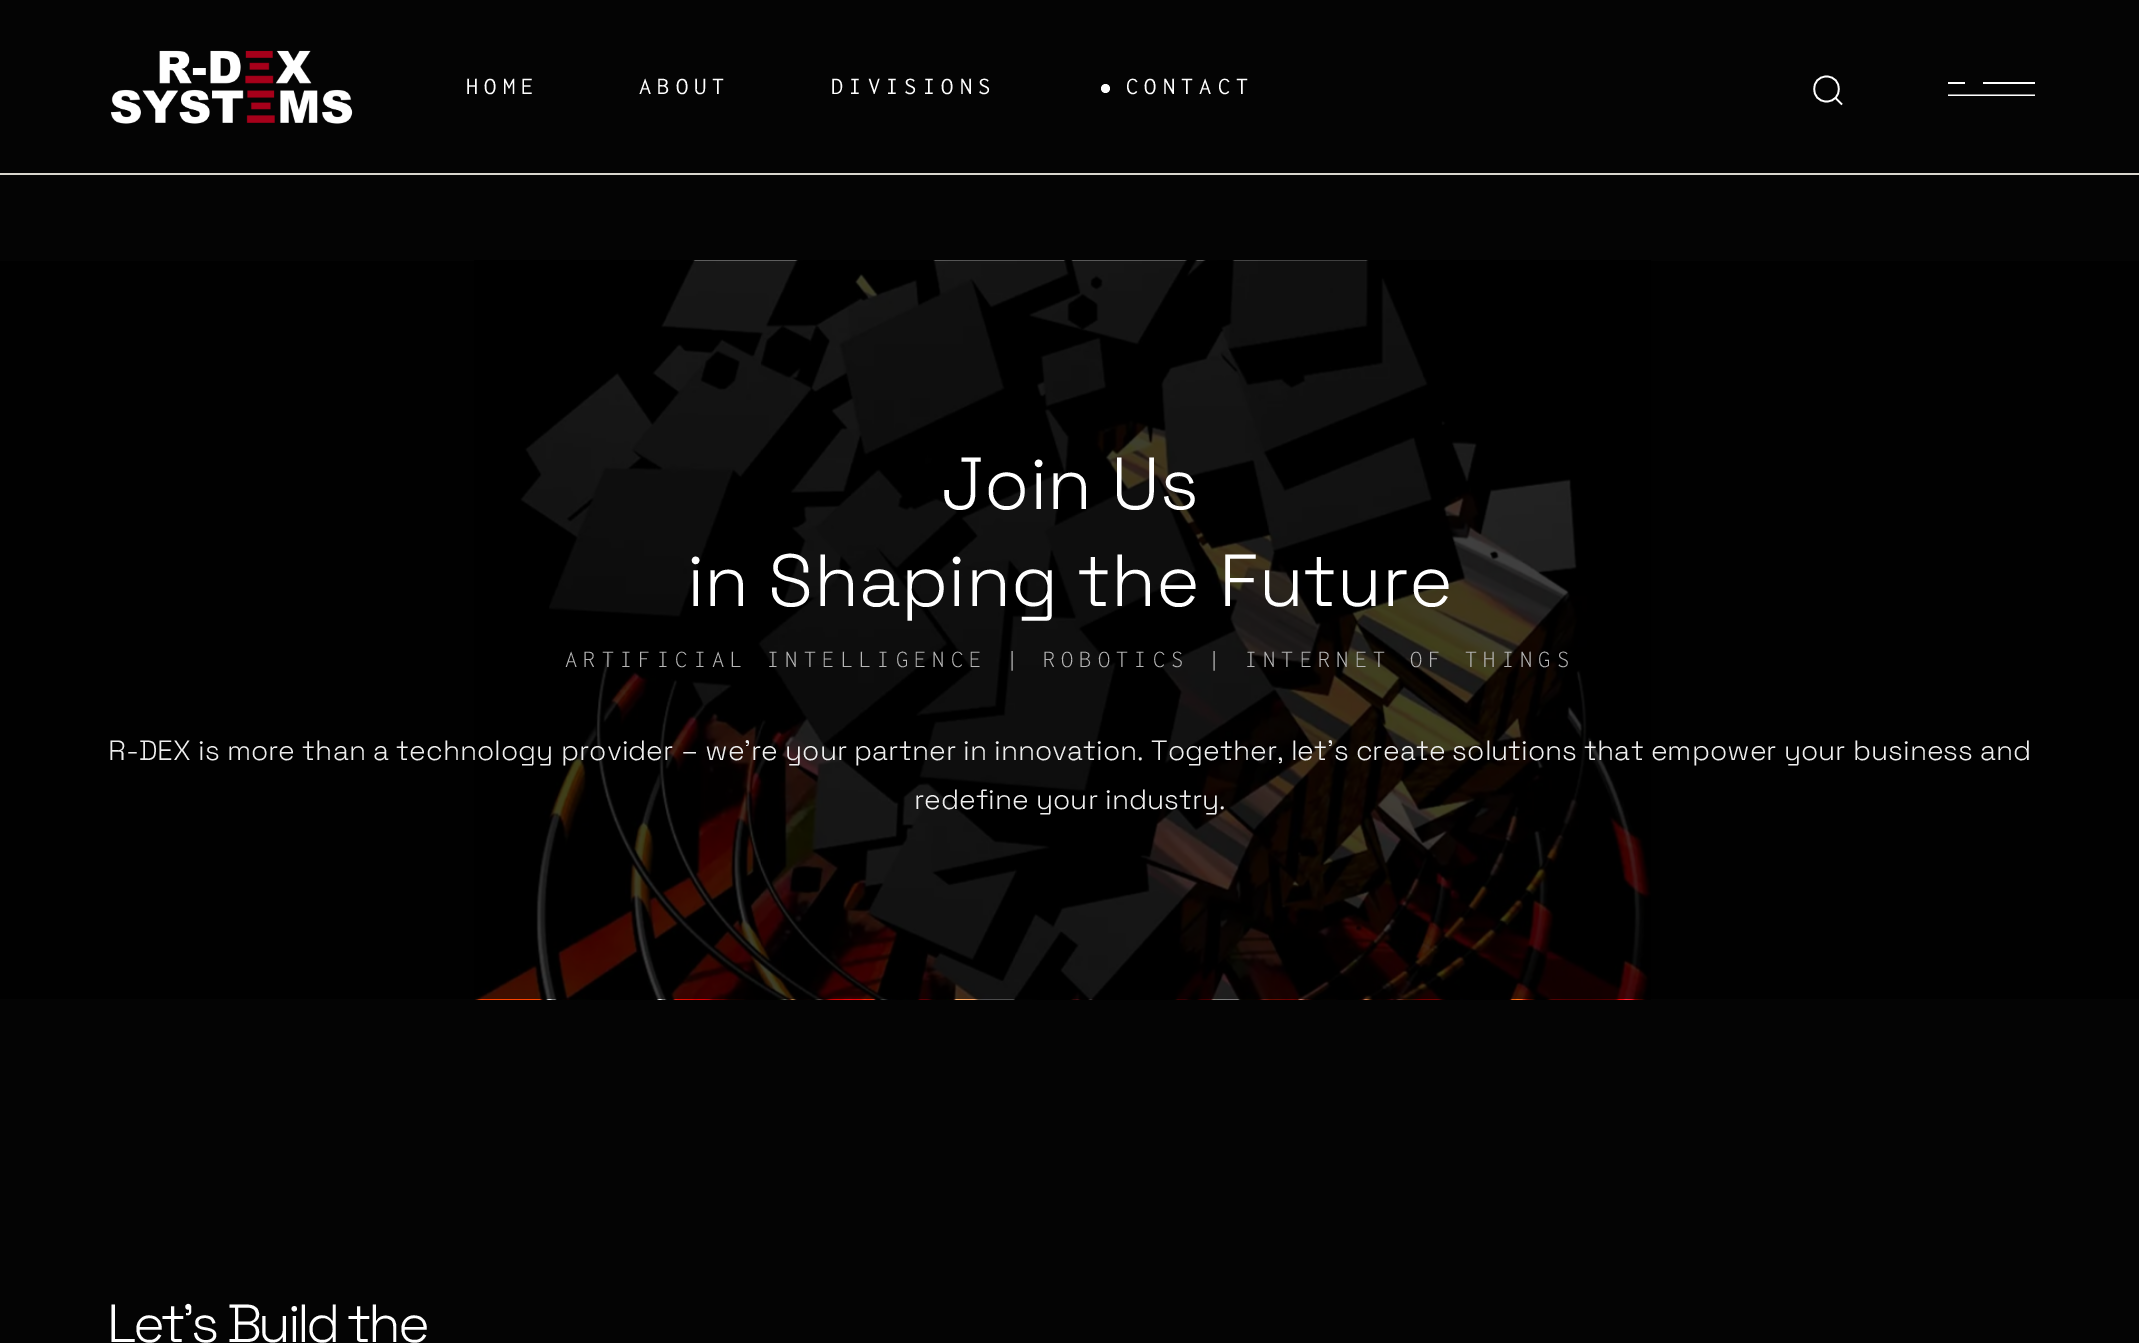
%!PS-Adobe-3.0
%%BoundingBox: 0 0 2139 1343
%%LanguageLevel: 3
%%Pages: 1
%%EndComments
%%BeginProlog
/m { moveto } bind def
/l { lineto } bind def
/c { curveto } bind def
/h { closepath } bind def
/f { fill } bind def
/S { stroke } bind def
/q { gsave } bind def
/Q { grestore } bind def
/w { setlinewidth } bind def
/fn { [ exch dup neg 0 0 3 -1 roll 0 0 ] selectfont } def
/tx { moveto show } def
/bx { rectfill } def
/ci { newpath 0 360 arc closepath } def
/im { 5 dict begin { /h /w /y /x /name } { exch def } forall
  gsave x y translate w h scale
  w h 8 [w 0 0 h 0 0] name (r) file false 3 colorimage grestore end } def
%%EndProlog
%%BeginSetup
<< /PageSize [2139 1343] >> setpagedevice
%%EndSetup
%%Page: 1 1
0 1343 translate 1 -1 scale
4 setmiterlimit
0.016 setgray
0 0 2139 1343 bx
0.004 setgray
0 261 2139 738 bx
0.851 0.839 0.808 setrgbcolor
0 173 2139 2 bx
(image0.raw) 110 50 243 74 im
/Inconsolata-Regular 24.5 fn
1 setgray
466 94 m 6.12 0 (HOME) ashow
639 94 m 6.12 0 (ABOUT) ashow
831 94 m 6.12 0 (DIVISIONS) ashow
1105.5 88.5 4.5 ci f
1126 94 m 6.12 0 (CONTACT) ashow
1.7 w
1826.5 76.5 m 1843 76.5 1843 101.5 1826.5 101.5 c 1810 101.5 1810 76.5 1826.5 76.5 c h 1842 104.5 m 1835.5 98 l S
1.8 w
1948 83 m 1965 83 l 1983 83 m 2035 83 l S
q
1948 82 87 14 rectclip
2035 95.5 m 1948 95.5 l S
Q
(image1.raw) 474 260 1177 740 im
/SpaceGrotesk-Light 73.5 fn
(Join Us) 941 509 tx
(in Shaping the Future) 687 606 tx
/Inconsolata-Light 24.5 fn
0.714 setgray
565 667 m 6.12 0 (ARTIFICIAL INTELLIGENCE | ROBOTICS | INTERNET OF THINGS) ashow
/SpaceGrotesk-Light 28 fn
0.933 setgray
(R-DEX is more than a technology provider – we’re your partner in innovation. Together, let’s create solutions that empower your business and) 108 760 tx
(redefine your industry.) 914 809 tx
/SpaceGrotesk-Light 53.5 fn
1 setgray
107 1342 m -3.5 0 (Let’s Build the) ashow
showpage
%%EOF
